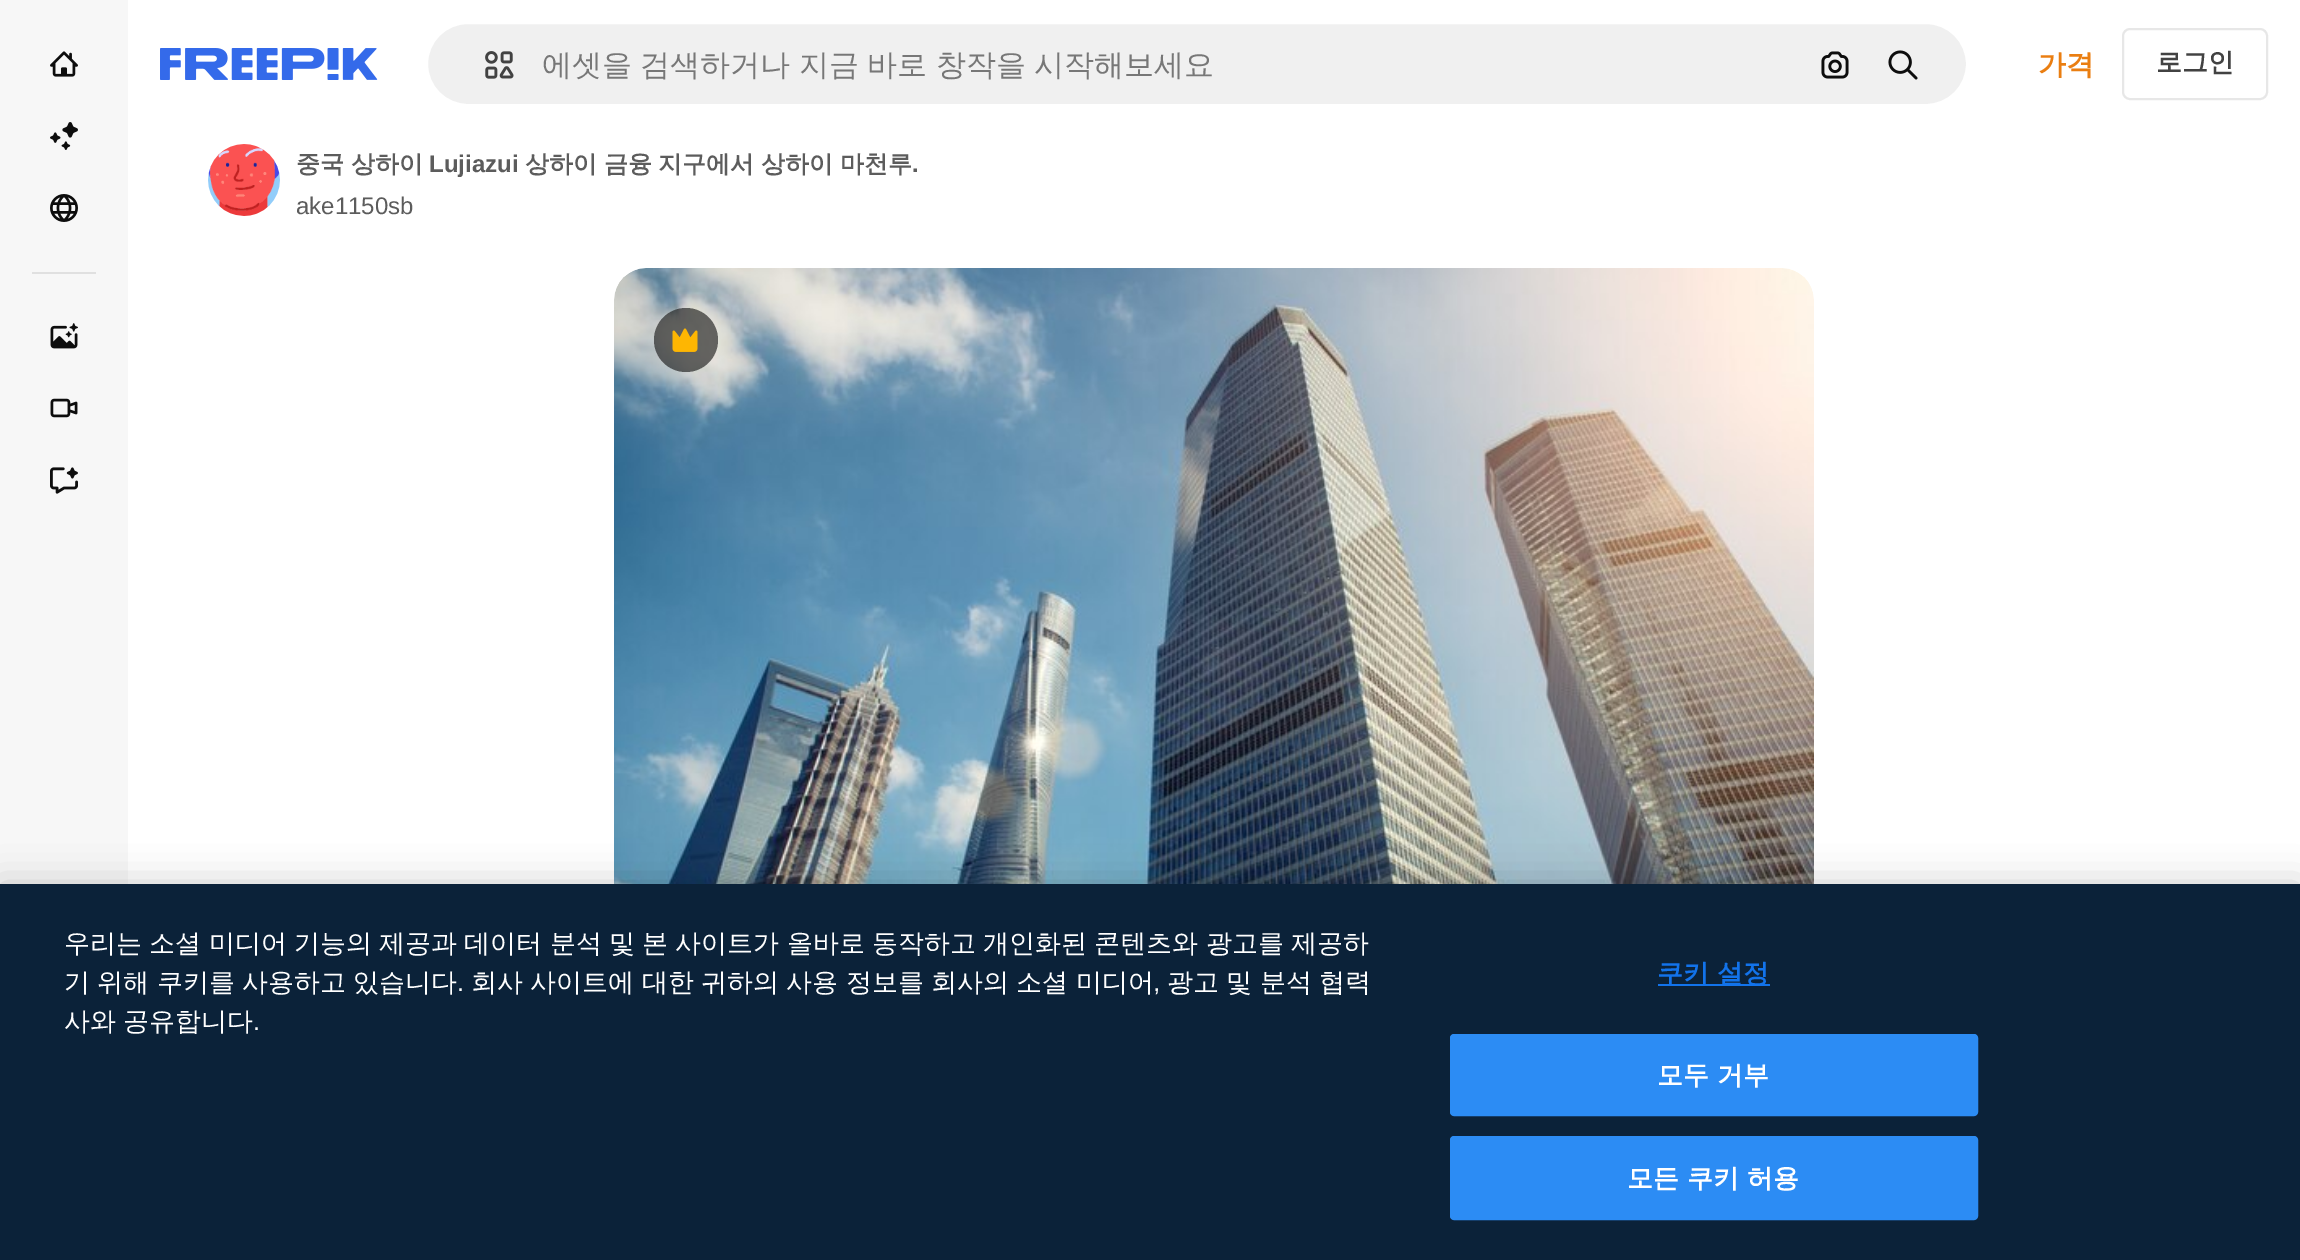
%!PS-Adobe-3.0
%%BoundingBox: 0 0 2300 1260
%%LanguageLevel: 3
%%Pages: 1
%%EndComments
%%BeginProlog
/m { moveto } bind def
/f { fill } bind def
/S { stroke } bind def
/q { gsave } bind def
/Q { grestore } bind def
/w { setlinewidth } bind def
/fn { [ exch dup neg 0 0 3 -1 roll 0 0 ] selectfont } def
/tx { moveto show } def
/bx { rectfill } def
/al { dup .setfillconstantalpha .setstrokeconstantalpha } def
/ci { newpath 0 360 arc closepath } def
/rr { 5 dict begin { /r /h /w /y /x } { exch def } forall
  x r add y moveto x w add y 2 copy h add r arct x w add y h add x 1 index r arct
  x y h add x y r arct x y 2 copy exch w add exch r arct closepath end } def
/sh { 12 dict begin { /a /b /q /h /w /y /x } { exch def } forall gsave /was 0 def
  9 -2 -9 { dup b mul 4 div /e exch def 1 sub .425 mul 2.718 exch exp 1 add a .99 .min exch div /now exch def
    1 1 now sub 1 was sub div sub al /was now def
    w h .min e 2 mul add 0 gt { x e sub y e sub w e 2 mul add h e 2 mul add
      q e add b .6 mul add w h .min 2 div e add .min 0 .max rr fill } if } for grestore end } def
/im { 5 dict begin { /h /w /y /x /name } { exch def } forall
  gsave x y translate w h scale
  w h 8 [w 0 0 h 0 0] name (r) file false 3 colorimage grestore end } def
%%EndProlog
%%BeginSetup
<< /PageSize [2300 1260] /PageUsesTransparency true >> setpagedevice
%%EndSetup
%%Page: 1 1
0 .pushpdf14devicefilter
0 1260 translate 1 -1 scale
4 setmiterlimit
1 setgray
0 0 2300 1260 bx
0.969 setgray
0 0 128 884 bx
(image0.raw) 50 51 28 26 im
(image1.raw) 50 122 28 28 im
(image2.raw) 50 194 28 28 im
0.878 setgray
32 272 64 2 bx
(image3.raw) 50 323 28 26 im
(image4.raw) 50 398 28 20 im
(image5.raw) 50 467 28 27 im
(image6.raw) 160 48 218 32 im
0.941 setgray
427 23 1540 82 41 rr q f Q
1 setgray
2 w
S
(image7.raw) 485 51 29 28 im
/WenQuanYiZenHei-Medium 30 fn
0.467 setgray
542 75 m -0.5 0 32 (에셋을 검색하거나 지금 바로 창작을 시작해보세요) widthshow
(image8.raw) 1821 51 28 28 im
(image9.raw) 1888 50 30 30 im
/WenQuanYiZenHei-Bold 28 fn
0.918 0.494 0.067 setrgbcolor
(가격) 2038 74 tx
0.906 setgray
2123 29 144 70 7 rr S
/WenQuanYiZenHei-Bold 26 fn
0.259 setgray
(로그인) 2156 71 tx
(image10.raw) 208 144 72 72 im
/WenQuanYiZenHei-Bold 24 fn
0.361 setgray
296 172 m -0.5 0 32 (중국 상하이) widthshow
/LiberationSans-Bold 24 fn
(Lujiazui) 429 172 tx
/WenQuanYiZenHei-Bold 24 fn
525 172 m -0.5 0 32 (상하이 금융 지구에서 상하이 마천루) widthshow
/LiberationSans-Bold 24 fn
(.) 912 172 tx
/LiberationSans-Regular 24 fn
(ake1150sb) 296 214 tx
(image11.raw) 614 268 1200 616 im
0.6 al
0.051 setgray
686 340 32 ci f
1 al
(image12.raw) 672 328 26 24 im
0 setgray
0 884 2300 376 0 18 0.2 sh
0.043 0.133 0.224 setrgbcolor
0 884 2300 376 bx
/WenQuanYiZenHei-Medium 26.02 fn
1 setgray
64 952 m -0.6 0 32 (우리는 소셜 미디어 기능의 제공과 데이터 분석 및 본 사이트가 올바로 동작하고 개인화된 콘텐츠와 광고를 제공하) widthshow
64 991 m -0.5 0 32 (기 위해 쿠키를 사용하고 있습니다) widthshow
/LiberationSans-Regular 26.02 fn
(.) 457 991 tx
/WenQuanYiZenHei-Medium 26.02 fn
471 991 m -0.5 0 32 (회사 사이트에 대한 귀하의 사용 정보를 회사의 소셜 미디어) widthshow
/LiberationSans-Regular 26.02 fn
(,) 1153 991 tx
/WenQuanYiZenHei-Medium 26.02 fn
1167 991 m -0.5 0 32 (광고 및 분석 협력) widthshow
64 1030 m -0.5 0 32 (사와 공유합니다) widthshow
/LiberationSans-Regular 26.02 fn
(.) 253 1030 tx
0.071 0.451 0.922 setrgbcolor
1658 984 112 2 bx
/WenQuanYiZenHei-Bold 26.02 fn
1657 982 m -0.5 0 32 0.25 0 (쿠키 설정) awidthshow
0.173 0.549 0.957 setrgbcolor
1451 1035 526 80 3 rr q f Q
S
1 setgray
1657 1084 m -0.5 0 32 0.25 0 (모두 거부) awidthshow
0.173 0.549 0.957 setrgbcolor
1451 1137 526 82 3 rr q f Q
S
1 setgray
1627 1187 m -0.5 0 32 0.25 0 (모든 쿠키 허용) awidthshow
.poppdf14devicefilter showpage
%%EOF
